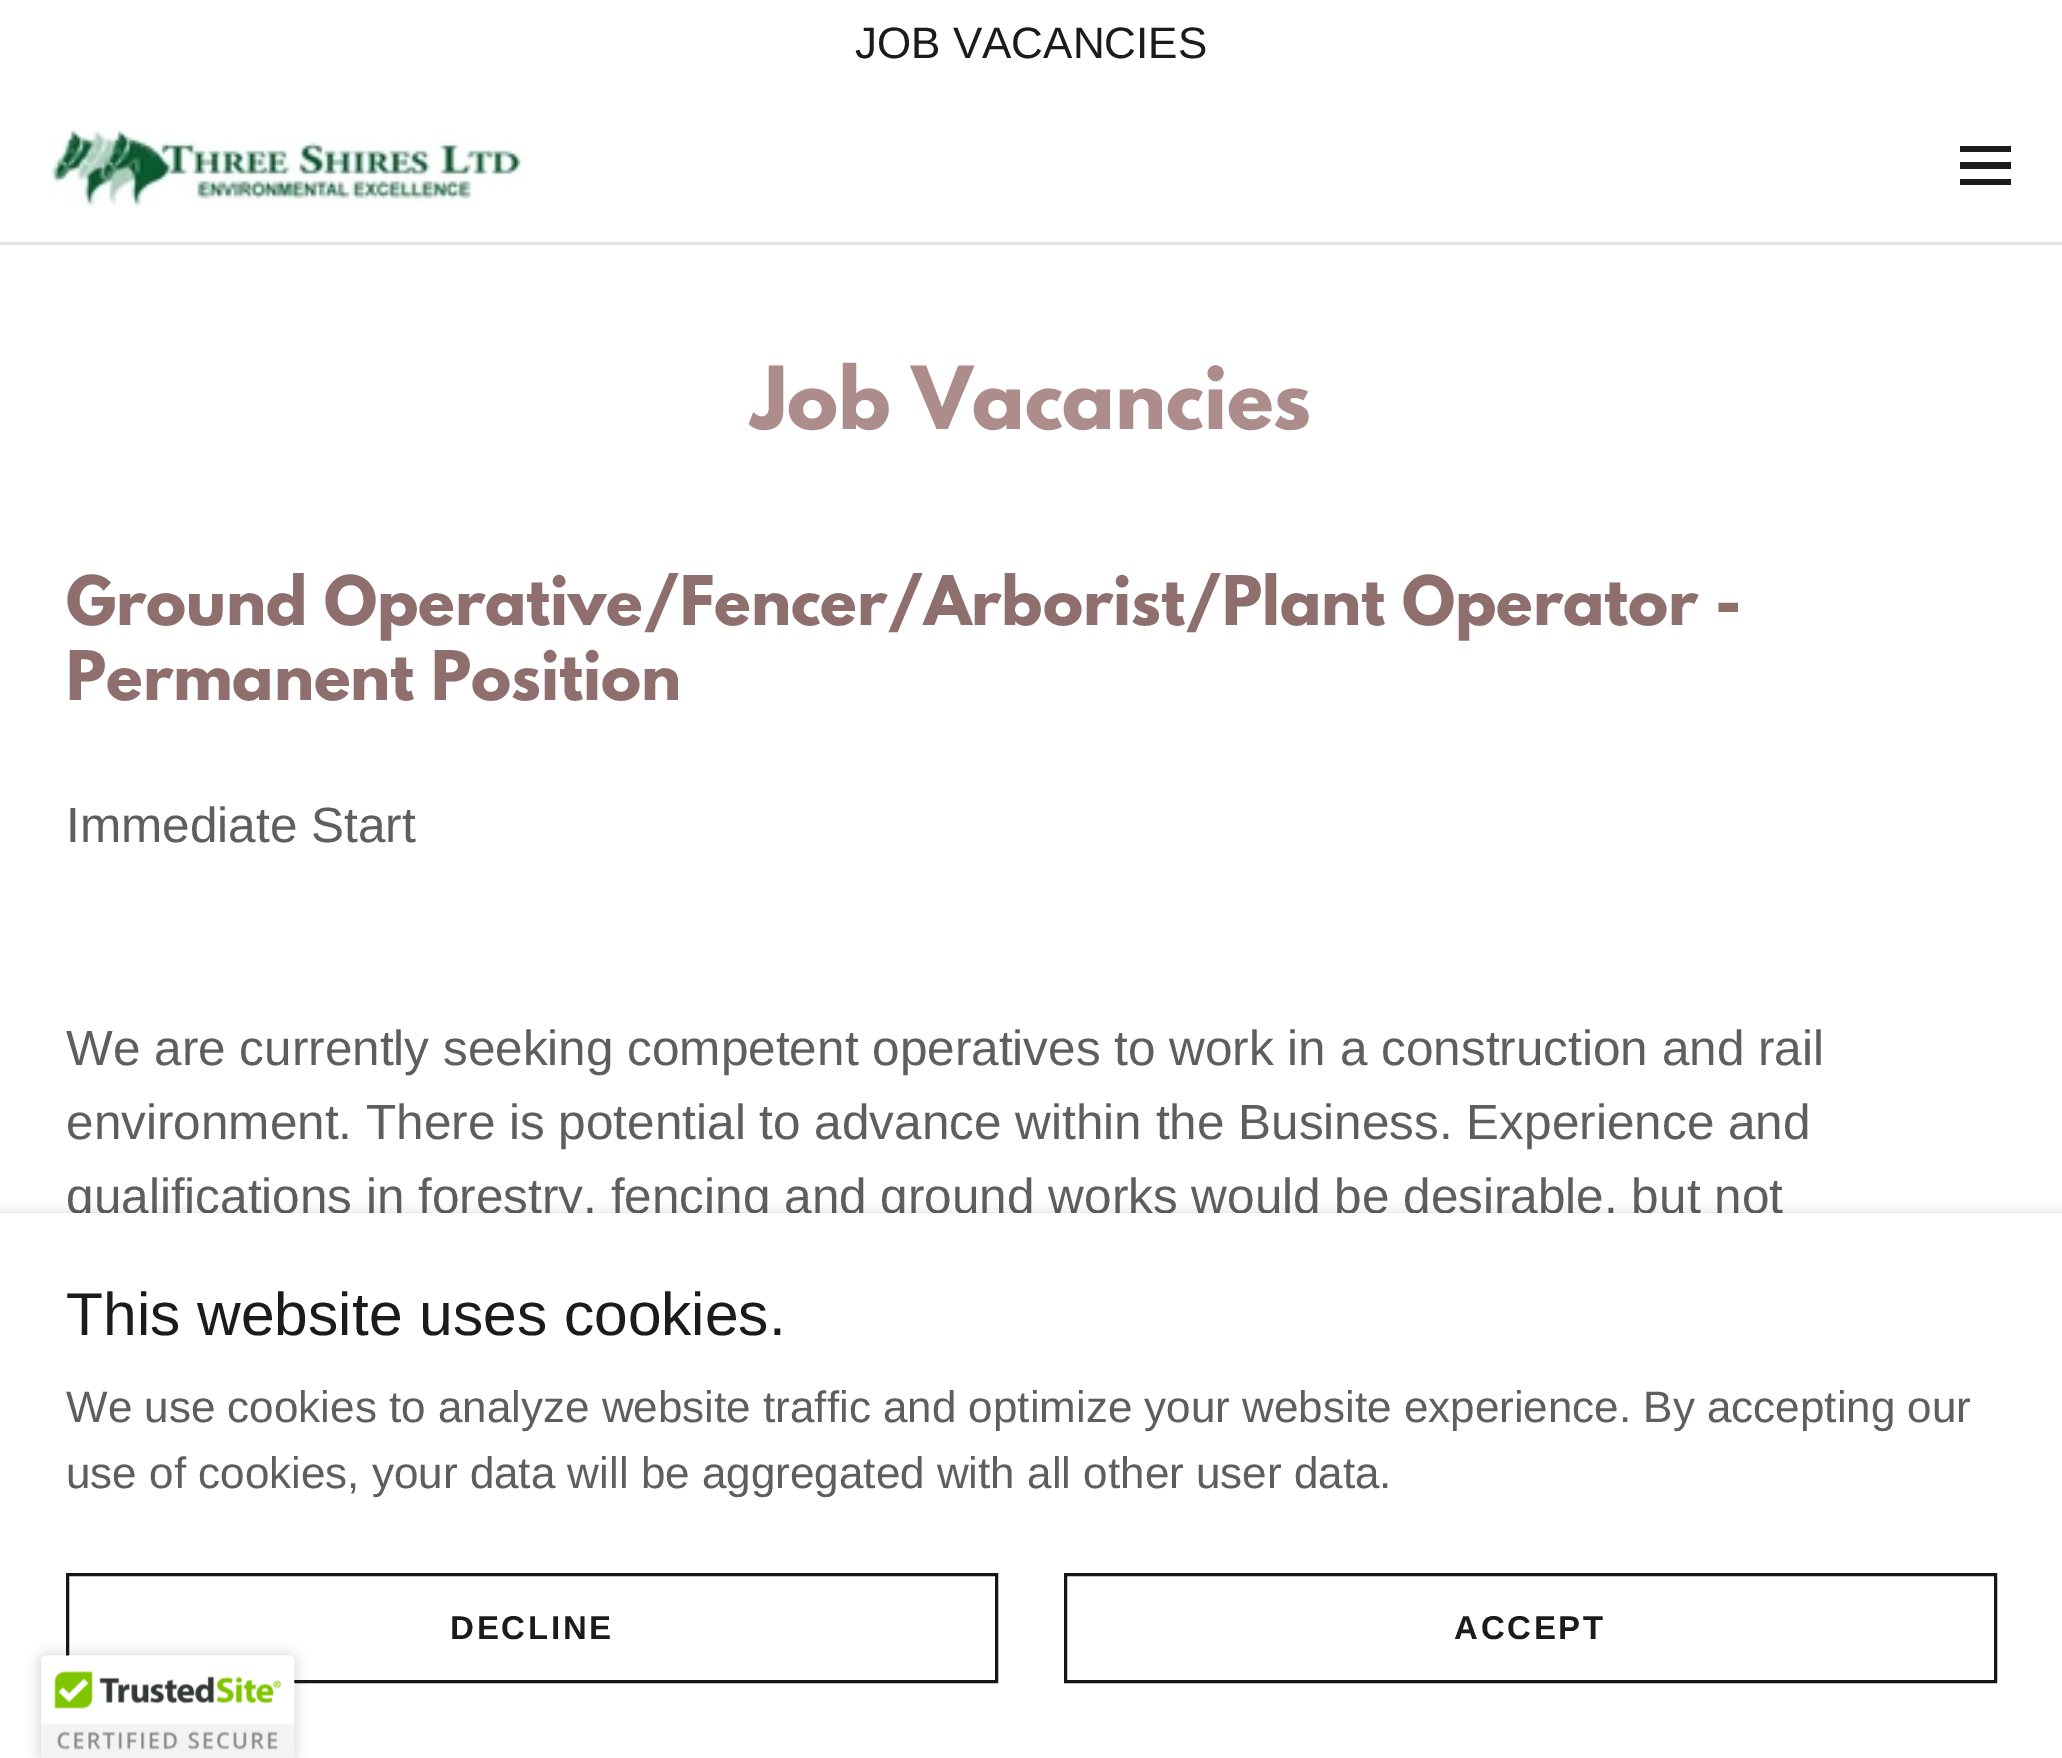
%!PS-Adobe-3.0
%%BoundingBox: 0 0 2062 1758
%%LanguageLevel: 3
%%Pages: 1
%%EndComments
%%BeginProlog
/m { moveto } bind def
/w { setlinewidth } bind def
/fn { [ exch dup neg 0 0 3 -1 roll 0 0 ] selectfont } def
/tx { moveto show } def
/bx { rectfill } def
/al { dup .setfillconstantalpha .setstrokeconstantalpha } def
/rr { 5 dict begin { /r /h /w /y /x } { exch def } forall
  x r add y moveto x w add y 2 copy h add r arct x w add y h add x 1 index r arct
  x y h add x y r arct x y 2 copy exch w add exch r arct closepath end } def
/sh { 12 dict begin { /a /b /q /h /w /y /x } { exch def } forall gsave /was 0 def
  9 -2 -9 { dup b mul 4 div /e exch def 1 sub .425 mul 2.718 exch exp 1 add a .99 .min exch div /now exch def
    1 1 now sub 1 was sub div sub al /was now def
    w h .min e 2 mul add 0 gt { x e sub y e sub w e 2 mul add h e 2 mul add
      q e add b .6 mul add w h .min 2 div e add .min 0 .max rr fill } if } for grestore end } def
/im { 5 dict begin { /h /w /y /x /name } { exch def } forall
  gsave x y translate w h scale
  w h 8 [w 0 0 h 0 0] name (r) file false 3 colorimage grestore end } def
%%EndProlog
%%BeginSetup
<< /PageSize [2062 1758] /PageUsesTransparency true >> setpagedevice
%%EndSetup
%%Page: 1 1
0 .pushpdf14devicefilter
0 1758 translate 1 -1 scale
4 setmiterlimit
1 setgray
0 0 2062 1758 bx
/LiberationSans-Regular 44 fn
0.106 setgray
(JOB VACANCIES) 855 58 tx
(image0.raw) 51 128 477 79 im
1960 146 51 6 bx
1960 162 51 7 bx
1960 179 51 6 bx
0.886 setgray
0 242 2062 3 bx
/LeagueSpartan-Bold 77 fn
0.678 0.549 0.549 setrgbcolor
(Job Vacancies) 751 429 tx
/LeagueSpartan-Bold 60.5 fn
0.561 0.431 0.431 setrgbcolor
(Ground Operative/Fencer/Arborist/Plant Operator -) 66 625 tx
(Permanent Position) 66 700 tx
/LiberationSans-Regular 49.5 fn
0.369 setgray
(Immediate Start) 66 842 tx
(We are currently seeking competent operatives to work in a construction and rail) 66 1065 tx
(environment. There is potential to advance within the Business. Experience and) 66 1139 tx
(qualifications in forestry, fencing and ground works would be desirable, but not) 66 1213 tx
0 setgray
0 1218 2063 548 0 8 0.3 sh
1 setgray
0 1213 2062 545 bx
/LiberationSans-Regular 60.5 fn
0.106 setgray
(This website uses cookies.) 66 1335 tx
/LiberationSans-Regular 44 fn
0.369 setgray
(We use cookies to analyze website traffic and optimize your website experience. By accepting our) 66 1422 tx
(use of cookies, your data will be aggregated with all other user data.) 66 1488 tx
0.086 setgray
3 w
67.5 1574.5 929 107 rectstroke
/LiberationSans-Bold 33 fn
0.106 setgray
450 1639 m 2.75 0 (DECLINE) ashow
0.086 setgray
1065.5 1574.5 930 107 rectstroke
0.106 setgray
1454 1639 m 2.75 0 (ACCEPT) ashow
0 setgray
41 1656 253 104 6 7 0.2 sh
(image1.raw) 41 1655 254 103 im
.poppdf14devicefilter showpage
%%EOF
